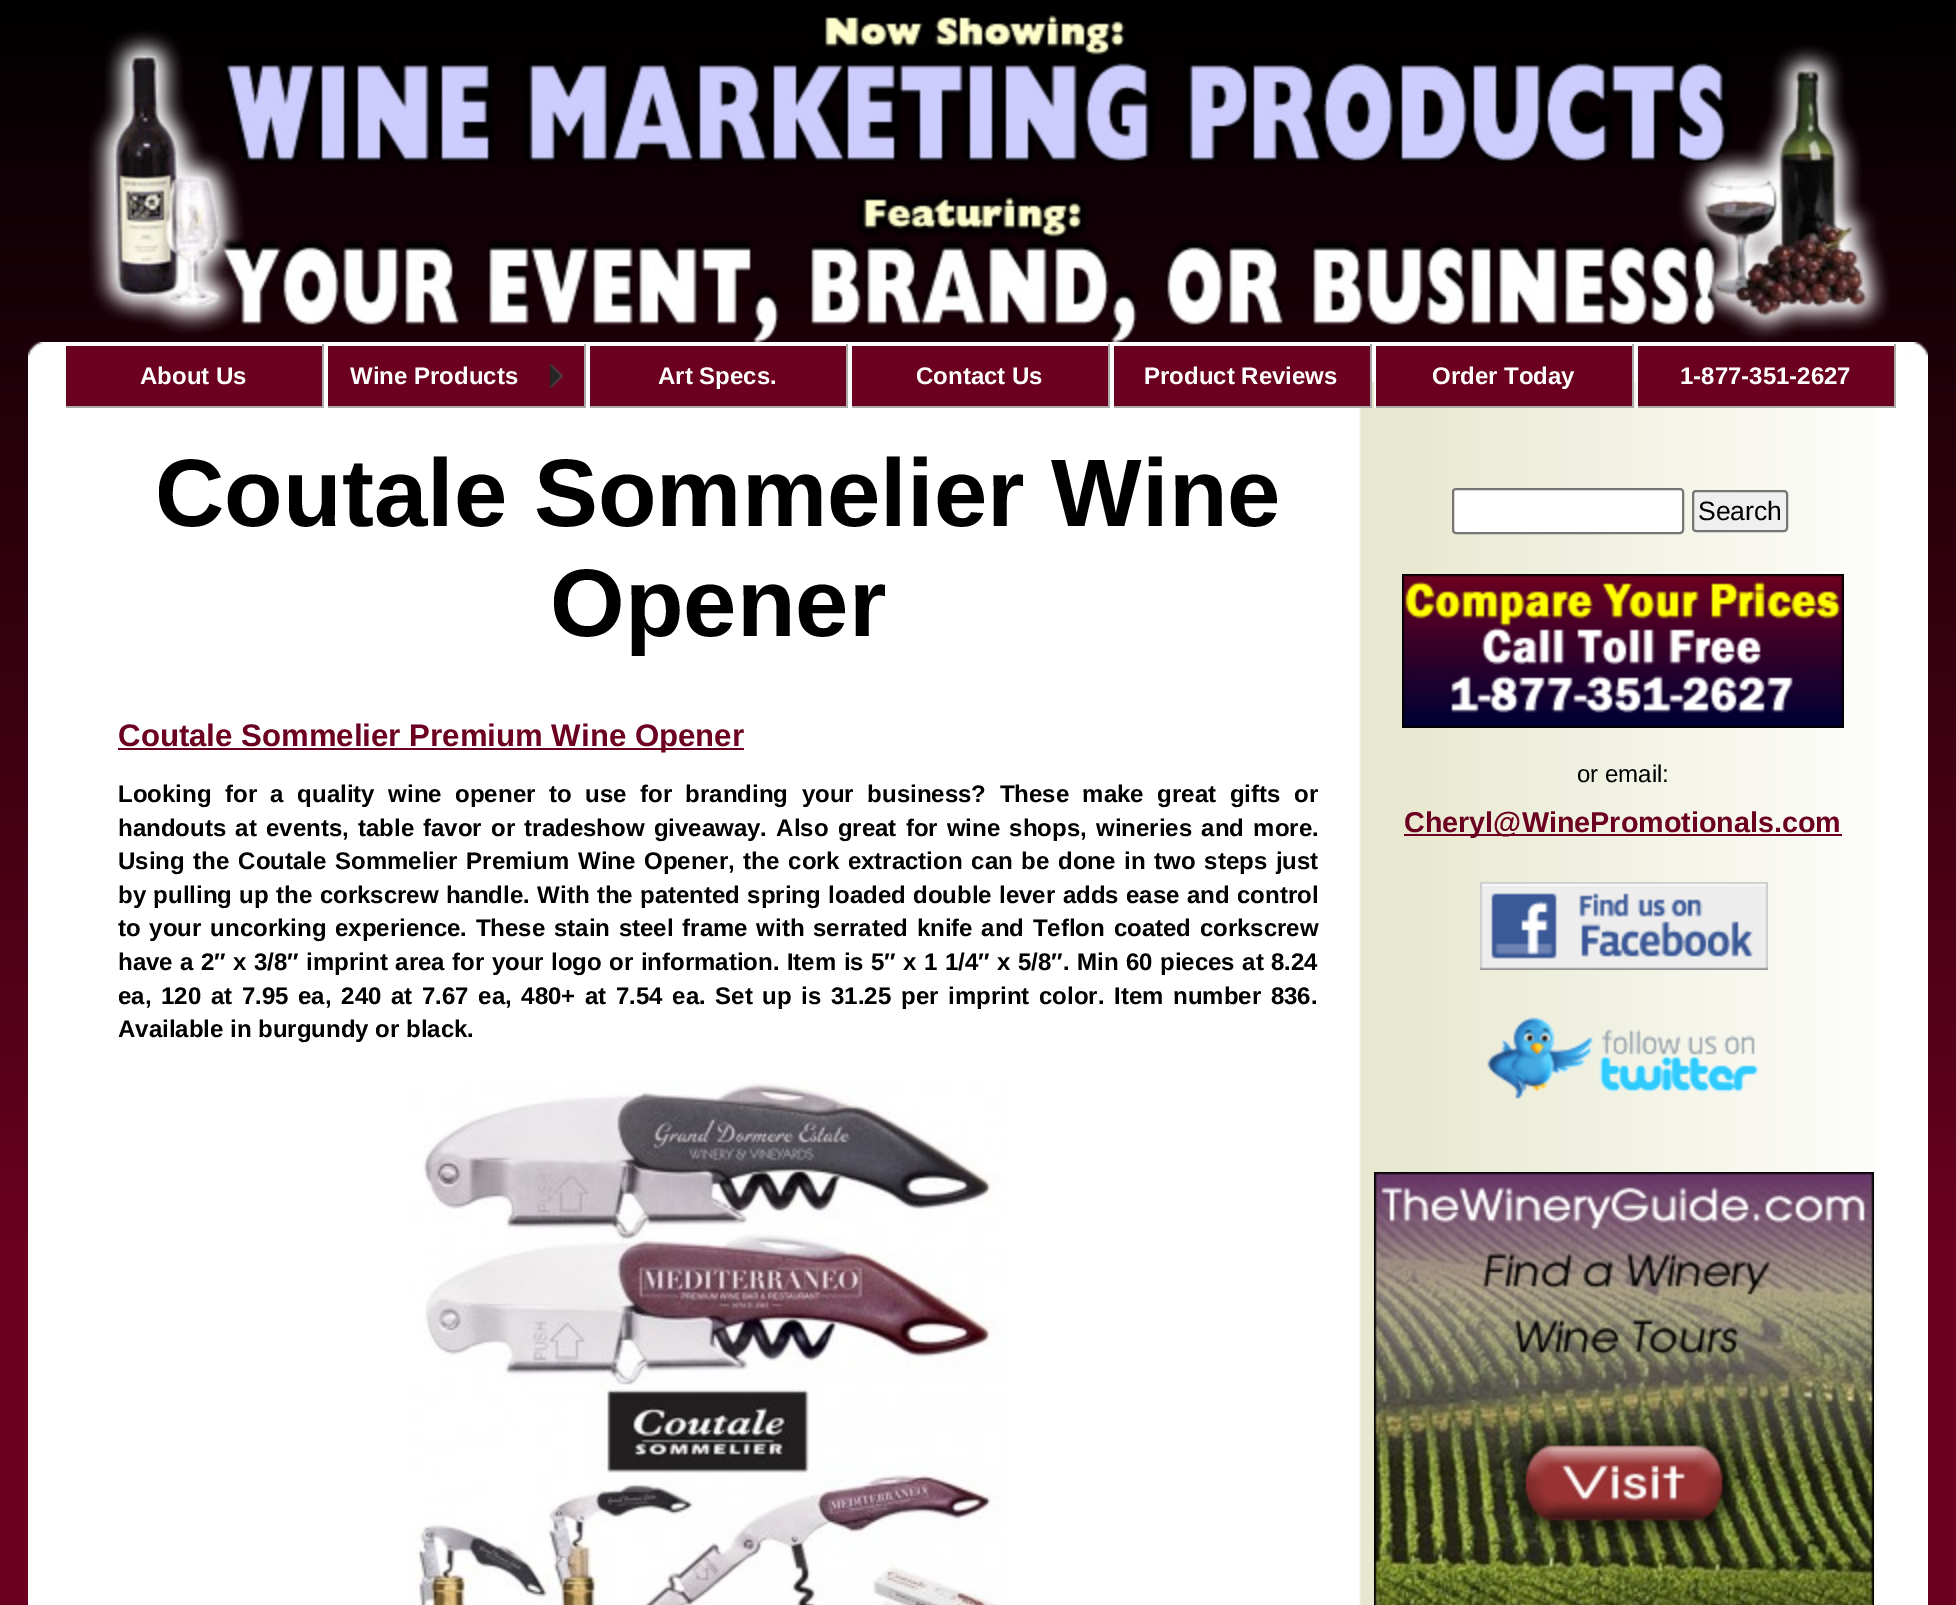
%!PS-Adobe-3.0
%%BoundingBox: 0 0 1956 1605
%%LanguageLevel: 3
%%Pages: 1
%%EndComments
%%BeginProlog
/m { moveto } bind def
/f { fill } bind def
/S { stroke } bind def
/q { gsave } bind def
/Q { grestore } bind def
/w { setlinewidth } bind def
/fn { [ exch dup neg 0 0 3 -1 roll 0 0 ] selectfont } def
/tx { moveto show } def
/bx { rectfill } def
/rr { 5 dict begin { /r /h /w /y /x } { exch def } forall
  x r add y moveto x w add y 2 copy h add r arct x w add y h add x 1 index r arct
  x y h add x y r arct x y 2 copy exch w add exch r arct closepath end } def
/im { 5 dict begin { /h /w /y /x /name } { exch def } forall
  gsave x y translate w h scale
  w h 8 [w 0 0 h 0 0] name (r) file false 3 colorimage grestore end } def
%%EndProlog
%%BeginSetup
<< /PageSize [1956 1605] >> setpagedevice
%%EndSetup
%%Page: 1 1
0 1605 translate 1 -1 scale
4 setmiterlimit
0.424 0 0.125 setrgbcolor
0 0 1956 1605 bx
(image0.raw) 0 0 1956 1238 im
(image1.raw) 28 342 1900 40 im
(image2.raw) 88 15 1802 327 im
1 setgray
28 382 1900 1223 bx
0.424 0 0.125 setrgbcolor
66 346 256 60 bx
0.667 setgray
322 344 2 64 bx
64 406 260 2 bx
1 setgray
64 406 2 2 bx
/LiberationSans-Bold 24 fn
(About Us) 140 384 tx
0.424 0 0.125 setrgbcolor
328 346 256 60 bx
0.667 setgray
584 344 2 64 bx
326 406 260 2 bx
1 setgray
326 406 2 2 bx
(Wine Products) 350 384 tx
(image3.raw) 550 364 13 24 im
0.424 0 0.125 setrgbcolor
590 346 256 60 bx
0.667 setgray
846 344 2 64 bx
588 406 260 2 bx
1 setgray
588 406 2 2 bx
(Art Specs.) 658 384 tx
0.424 0 0.125 setrgbcolor
852 346 256 60 bx
0.667 setgray
1108 344 2 64 bx
850 406 260 2 bx
1 setgray
850 406 2 2 bx
(Contact Us) 916 384 tx
(image4.raw) 1359 382 517 1223 im
0.424 0 0.125 setrgbcolor
1114 346 256 60 bx
0.667 setgray
1370 344 2 64 bx
1112 406 260 2 bx
1 setgray
1112 406 2 2 bx
(Product Reviews) 1144 384 tx
0.424 0 0.125 setrgbcolor
1376 346 256 60 bx
0.667 setgray
1632 344 2 64 bx
1374 406 260 2 bx
1 setgray
1374 382 2 26 bx
(Order Today) 1432 384 tx
0.424 0 0.125 setrgbcolor
1638 346 256 60 bx
0.667 setgray
1894 344 2 64 bx
1636 406 260 2 bx
1 setgray
1636 382 2 26 bx
(1-877-351-2627) 1680 384 tx
/LiberationSans-Bold 96 fn
0 setgray
(Coutale Sommelier Wine) 155 526 tx
(Opener) 550 636 tx
0.424 0 0.125 setrgbcolor
118 748 626 2 bx
/LiberationSans-Bold 31.2 fn
(Coutale Sommelier Premium Wine Opener) 118 746 tx
/LiberationSans-Bold 24 fn
0 setgray
118 802 m 6.9 0 32 (Looking for a quality wine opener to use for branding your business? These make great gifts or) widthshow
118 836 m 2.6 0 32 (handouts at events, table favor or tradeshow giveaway. Also great for wine shops, wineries and more.) widthshow
118 869 m 2.1 0 32 (Using the Coutale Sommelier Premium Wine Opener, the cork extraction can be done in two steps just) widthshow
118 903 m 0.75 0 32 (by pulling up the corkscrew handle. With the patented spring loaded double lever adds ease and control) widthshow
118 936 m 2.1 0 32 (to your uncorking experience. These stain steel frame with serrated knife and Teflon coated corkscrew) widthshow
118 970 m 0.8 0 32 (have a 2″ x 3/8″ imprint area for your logo or information. Item is 5″ x 1 1/4″ x 5/8″. Min 60 pieces at 8.24) widthshow
118 1004 m 3 0 32 (ea, 120 at 7.95 ea, 240 at 7.67 ea, 480+ at 7.54 ea. Set up is 31.25 per imprint color. Item number 836.) widthshow
(Available in burgundy or black.) 118 1037 tx
(image5.raw) 408 1080 597 525 im
1 setgray
1453 489 230 44 3 rr q f Q
0.463 setgray
2 w
S
0.937 setgray
1693 491 94 40 3 rr q f Q
0.463 setgray
S
/LiberationSans-Regular 26.5 fn
0 setgray
(Search) 1698 520 tx
(image6.raw) 1402 574 442 154 im
/LiberationSans-Regular 24 fn
(or email:) 1577 782 tx
0.424 0 0.125 setrgbcolor
1404 834 438 2 bx
/LiberationSans-Bold 28.75 fn
(Cheryl@WinePromotionals.com) 1404 832 tx
(image7.raw) 1480 882 288 88 im
(image8.raw) 1487 1017 272 82 im
(image9.raw) 1374 1172 500 433 im
showpage
%%EOF
